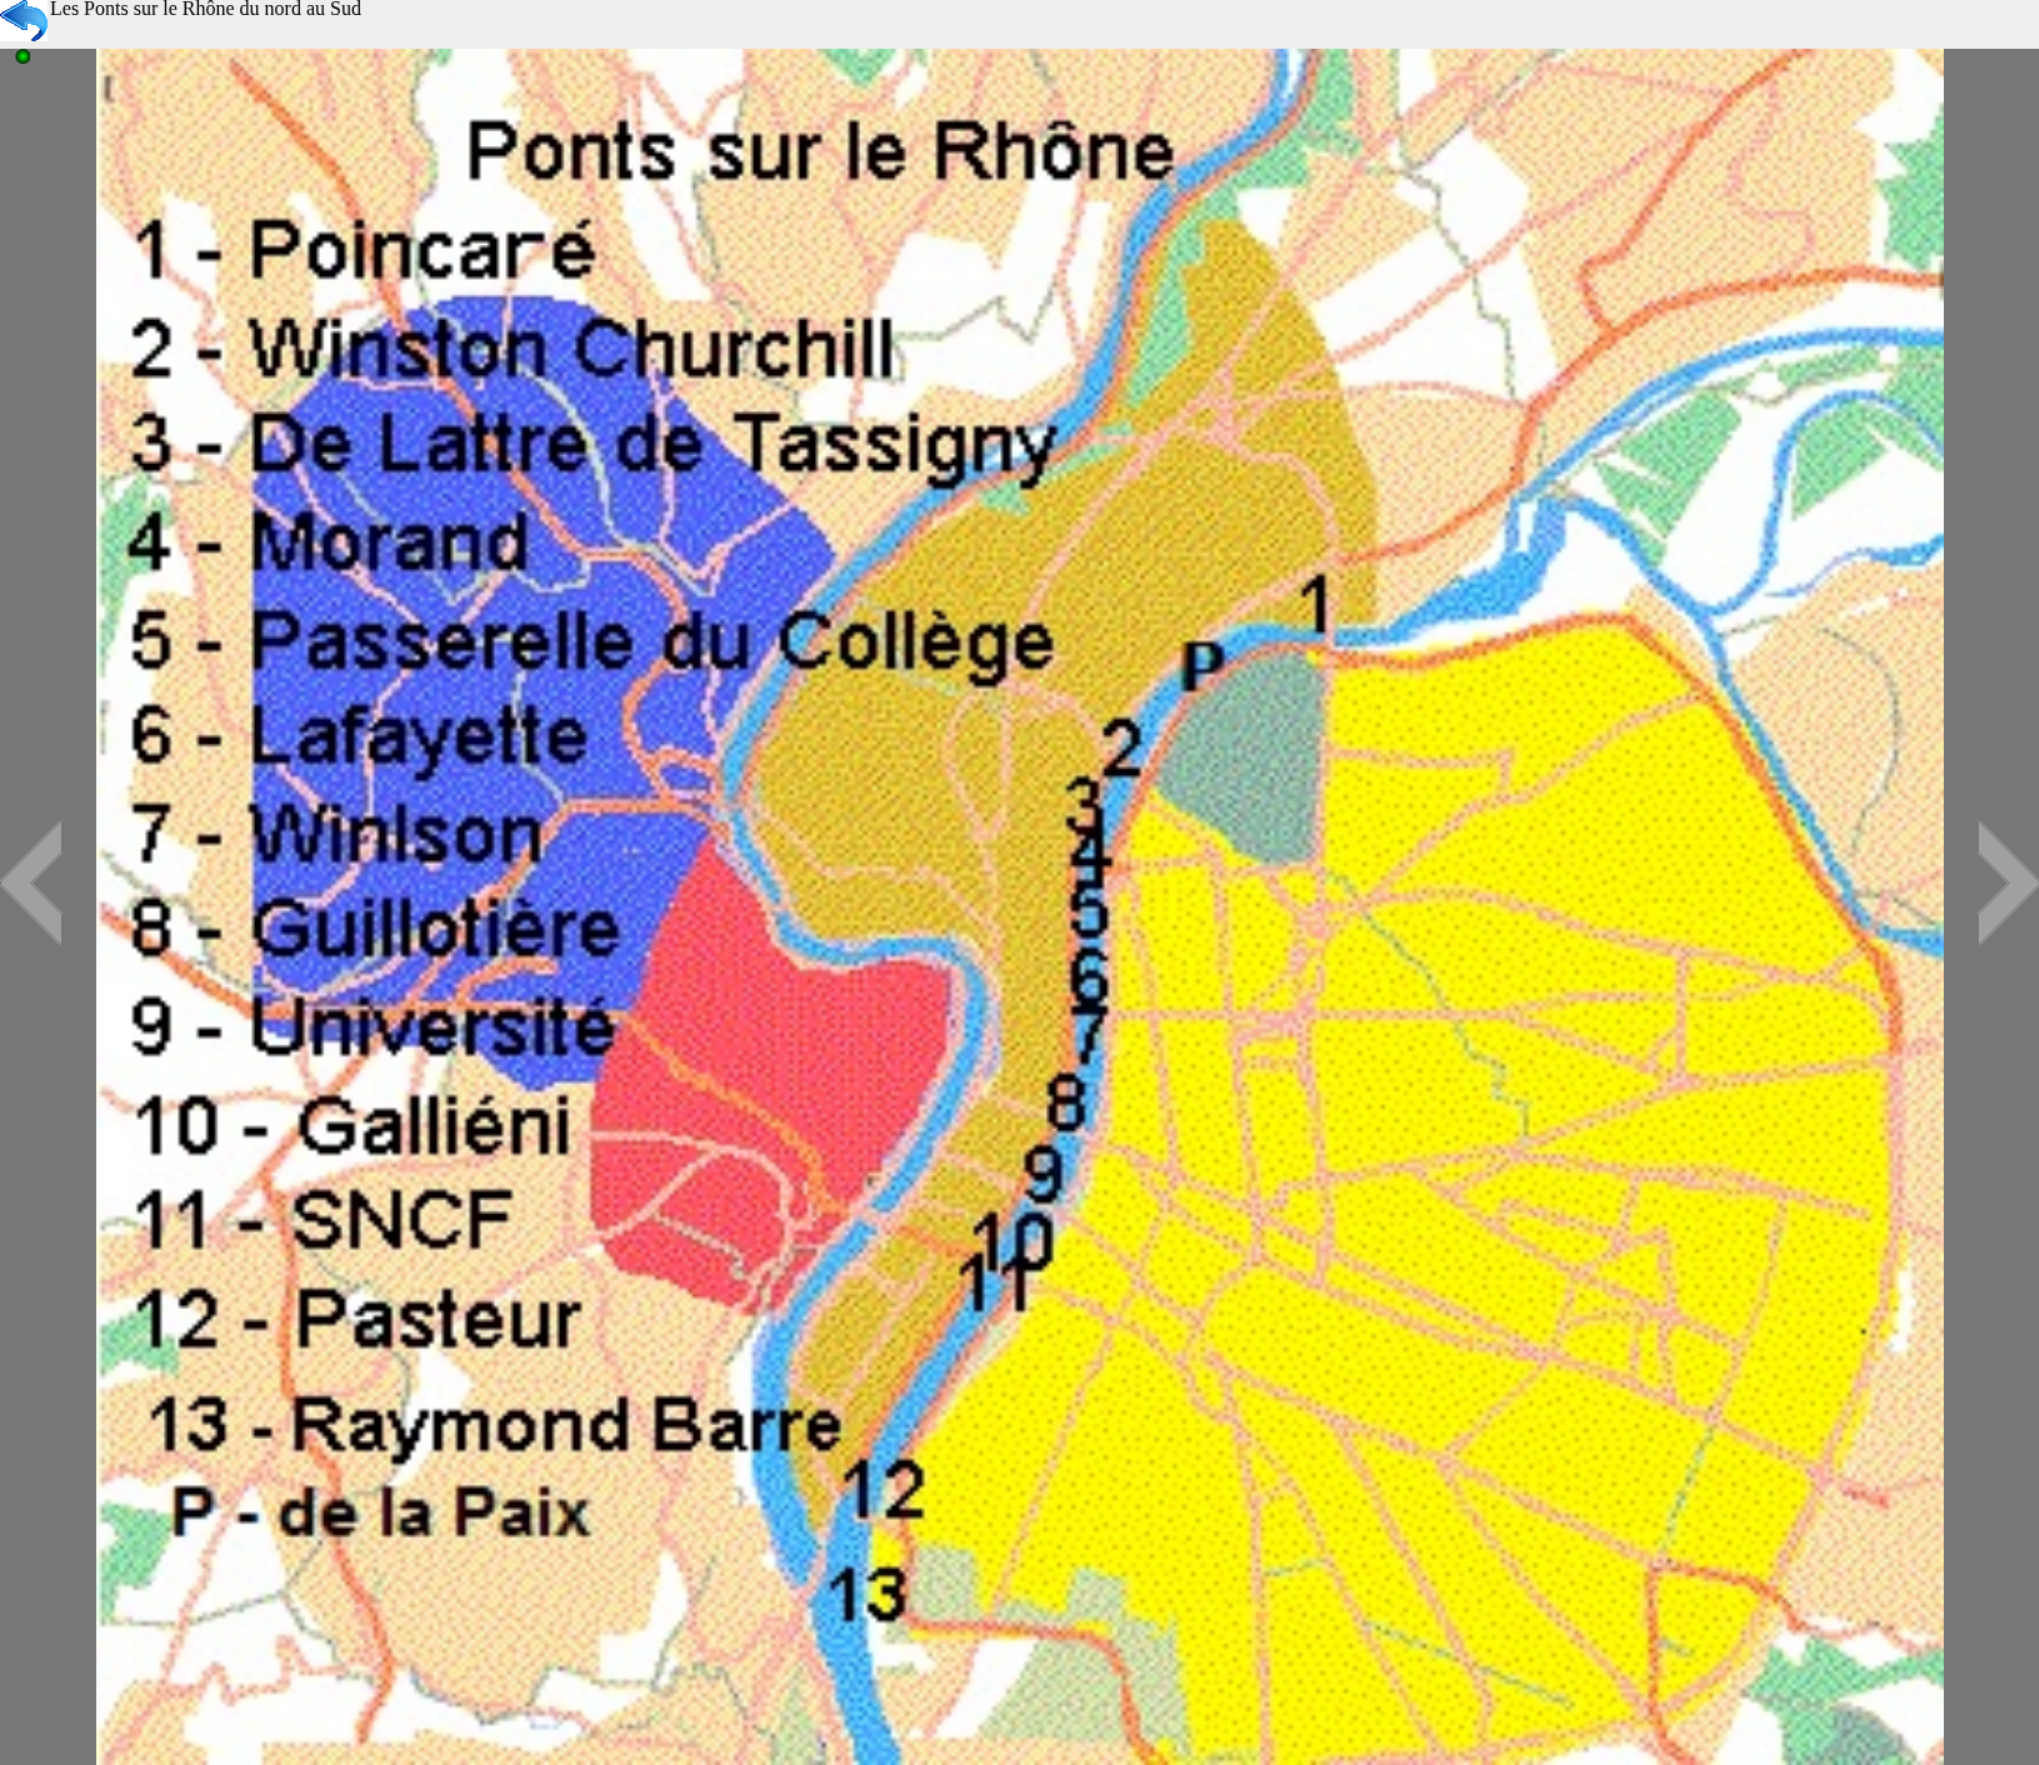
%!PS-Adobe-3.0
%%BoundingBox: 0 0 2039 1765
%%LanguageLevel: 3
%%Pages: 1
%%EndComments
%%BeginProlog
/bx { rectfill } def
/im { 5 dict begin { /h /w /y /x /name } { exch def } forall
  gsave x y translate w h scale
  w h 8 [w 0 0 h 0 0] name (r) file false 3 colorimage grestore end } def
%%EndProlog
%%BeginSetup
<< /PageSize [2039 1765] >> setpagedevice
%%EndSetup
%%Page: 1 1
0 1765 translate 1 -1 scale
4 setmiterlimit
1 setgray
0 0 2039 1765 bx
(image0.raw) 0 0 2039 1765 im
showpage
%%EOF
